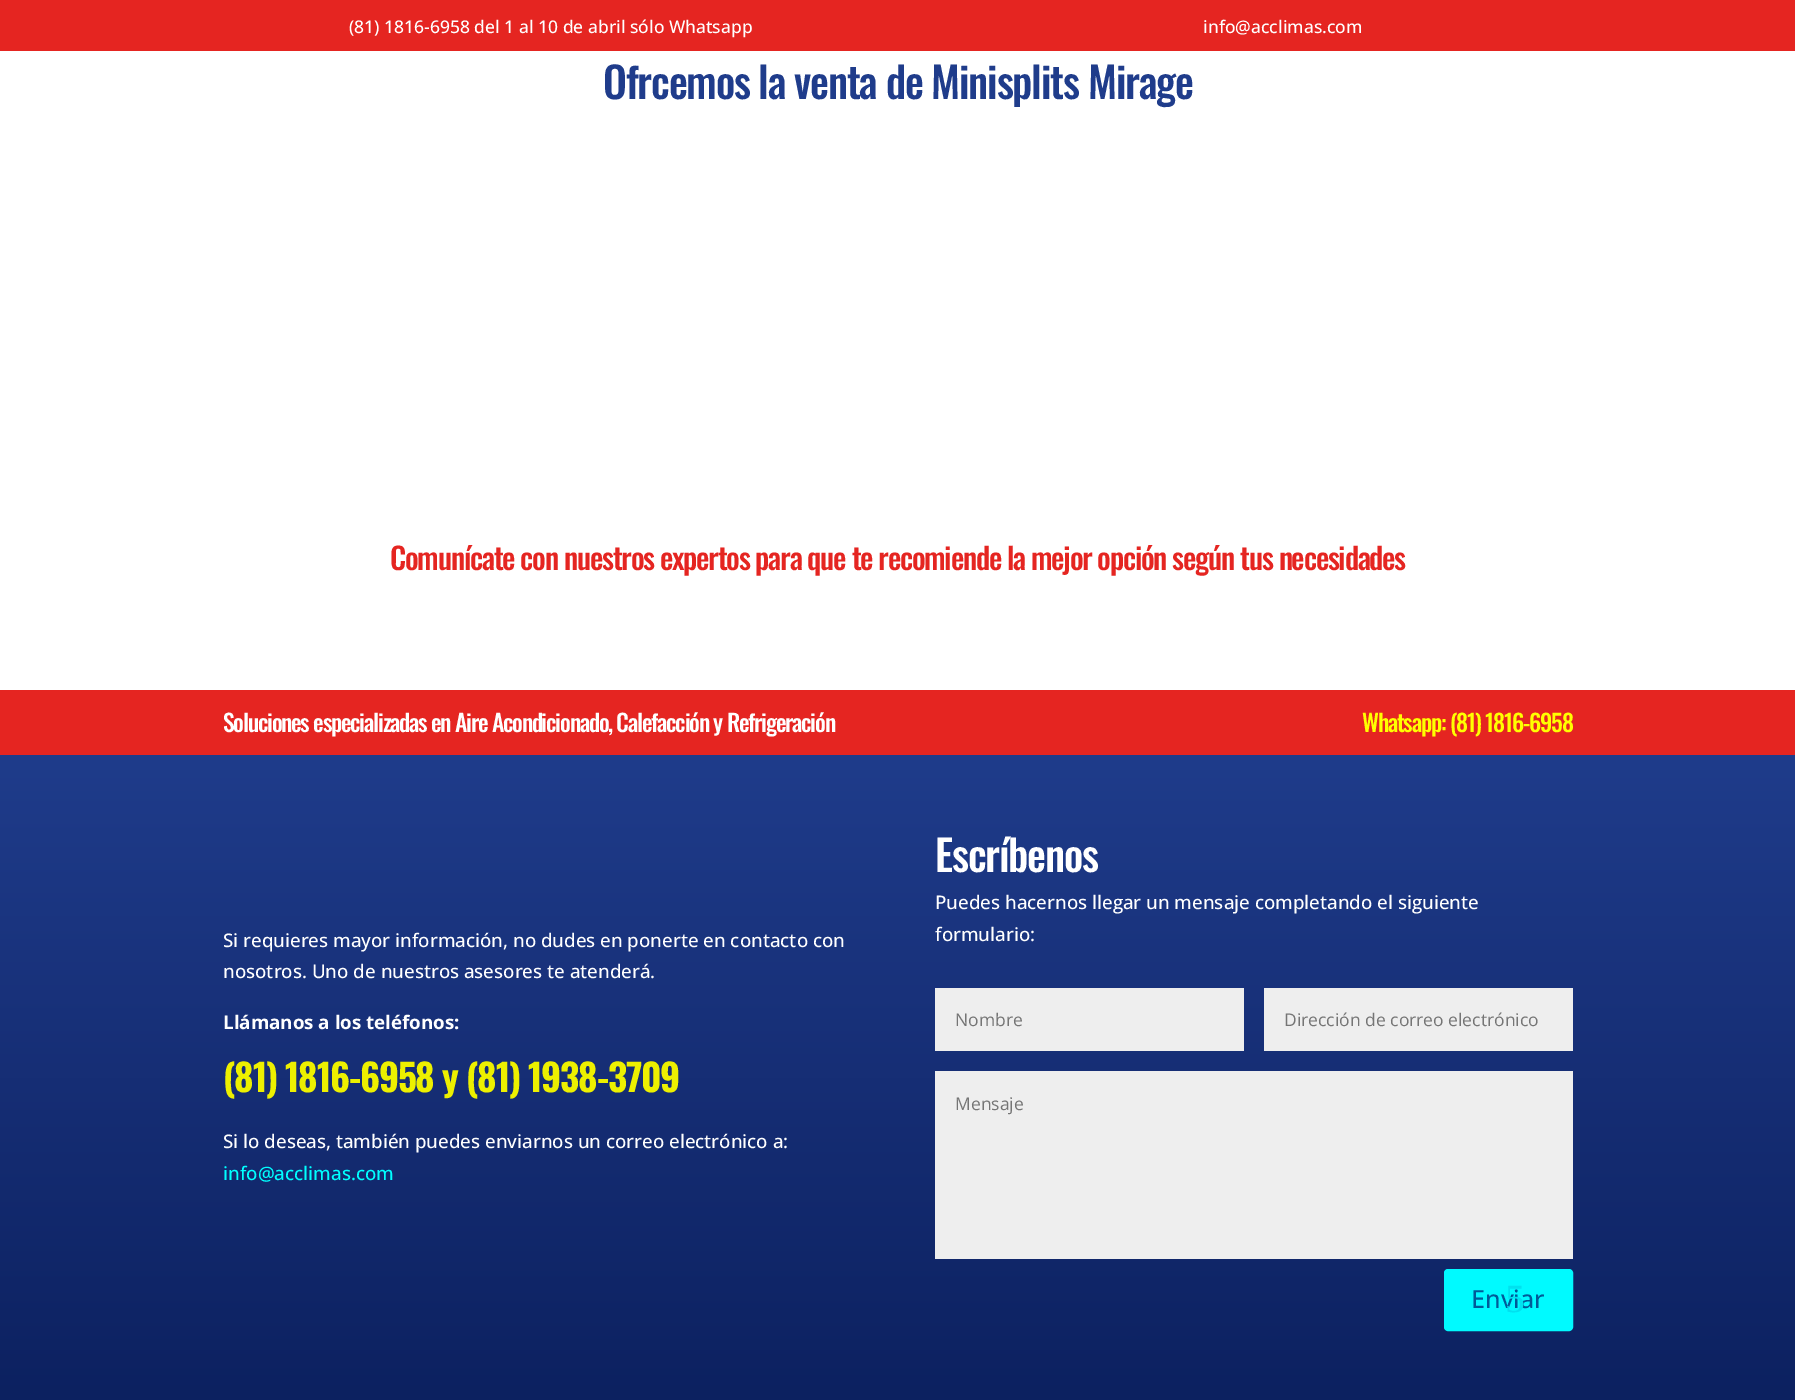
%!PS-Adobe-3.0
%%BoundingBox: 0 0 1795 1400
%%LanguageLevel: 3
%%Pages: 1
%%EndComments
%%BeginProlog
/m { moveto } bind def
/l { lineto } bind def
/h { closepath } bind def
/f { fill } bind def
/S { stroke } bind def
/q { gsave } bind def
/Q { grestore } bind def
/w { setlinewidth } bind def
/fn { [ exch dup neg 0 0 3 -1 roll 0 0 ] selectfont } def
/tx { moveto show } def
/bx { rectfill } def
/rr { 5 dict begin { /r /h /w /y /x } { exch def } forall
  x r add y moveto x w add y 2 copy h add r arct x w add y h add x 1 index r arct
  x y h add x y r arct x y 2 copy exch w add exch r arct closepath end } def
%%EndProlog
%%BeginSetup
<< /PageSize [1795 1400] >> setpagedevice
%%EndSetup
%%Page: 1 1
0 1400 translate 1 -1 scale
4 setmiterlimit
1 setgray
0 0 1795 1400 bx
0.898 0.145 0.129 setrgbcolor
0 0 1795 51 bx
/OpenSans-Medium 17.5 fn
1 setgray
(\(81\) 1816-6958 del 1 al 10 de abril sólo Whatsapp) 349 33 tx
(info@acclimas.com) 1203 33 tx
/Oswald-Medium 42.5 fn
0.122 0.235 0.545 setrgbcolor
603 99 m -1.25 0 (Ofrcemos la venta de Minisplits Mirage) ashow
/Oswald-Medium 30 fn
0.898 0.145 0.129 setrgbcolor
390 570 m -1.25 0 (Comunícate con nuestros expertos para que te recomiende la mejor opción según tus necesidades) ashow
0 690 1795 65 bx
/Oswald-Medium 23.75 fn
1 setgray
223 732 m -1.25 0 (Soluciones especializadas en Aire Acondicionado, Calefacción y Refrigeración) ashow
1 1 0 setrgbcolor
1362 732 m -1.25 0 (Whatsapp: \(81\) 1816-6958) ashow
q 0 755 m 1795 755 l 1795 1400 l 0 1400 l h clip newpath
<< /ShadingType 2 /ColorSpace /DeviceRGB /Coords [898 755 898 1400] /Extend [true true] /Function << /FunctionType 2 /Domain [0 1] /C0 [0.122 0.235 0.545] /C1 [0.047 0.129 0.376] /N 1 >> >> shfill Q
/OpenSans-Medium 18.75 fn
1 setgray
(Si requieres mayor información, no dudes en ponerte en contacto con) 223 947 tx
(nosotros. Uno de nuestros asesores te atenderá.) 223 978 tx
/OpenSans-Bold 18.75 fn
(Llámanos a los teléfonos:) 223 1029 tx
/Oswald-Bold 37.5 fn
0.929 0.941 0 setrgbcolor
223 1092 m -1.25 0 (\(81\) 1816-6958 y \(81\) 1938-3709) ashow
/OpenSans-Medium 18.75 fn
1 setgray
(Si lo deseas, también puedes enviarnos un correo electrónico a:) 223 1148 tx
0 1 1 setrgbcolor
(info@acclimas.com) 223 1180 tx
/Oswald-Medium 42.5 fn
1 setgray
935 872 m -1.25 0 (Escríbenos) ashow
/OpenSans-Medium 18.75 fn
(Puedes hacernos llegar un mensaje completando el siguiente) 935 909 tx
(formulario:) 935 941 tx
0.933 setgray
935 988 309 63 bx
/OpenSans-Regular 17.5 fn
0.459 setgray
(Nombre) 955 1026 tx
0.933 setgray
1264 988 309 63 bx
0.459 setgray
(Dirección de correo electrónico) 1284 1026 tx
0.933 setgray
935 1071 638 188 bx
0.459 setgray
(Mensaje) 955 1110 tx
0 0.98 1 setrgbcolor
1445.5 1270.5 126 59 2.5 rr q f Q
3 w
S
/OpenSans-Medium 25 fn
0 0.353 0.596 setrgbcolor
(Enviar) 1471 1308 tx
/LiberationSerif-Regular 40 fn
0 0.882 0.937 setrgbcolor
(5) 1505 1312 tx
showpage
%%EOF
